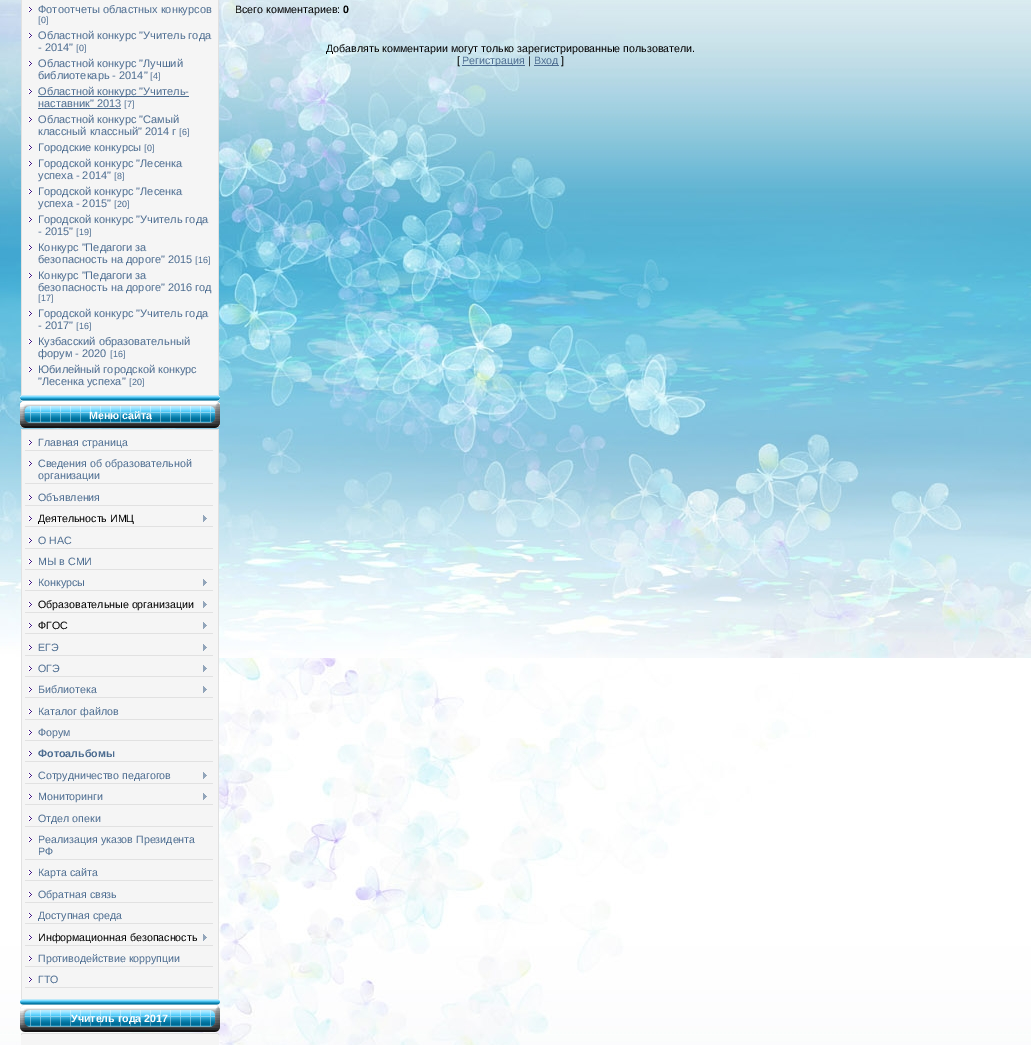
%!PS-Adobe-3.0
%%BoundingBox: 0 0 1031 1045
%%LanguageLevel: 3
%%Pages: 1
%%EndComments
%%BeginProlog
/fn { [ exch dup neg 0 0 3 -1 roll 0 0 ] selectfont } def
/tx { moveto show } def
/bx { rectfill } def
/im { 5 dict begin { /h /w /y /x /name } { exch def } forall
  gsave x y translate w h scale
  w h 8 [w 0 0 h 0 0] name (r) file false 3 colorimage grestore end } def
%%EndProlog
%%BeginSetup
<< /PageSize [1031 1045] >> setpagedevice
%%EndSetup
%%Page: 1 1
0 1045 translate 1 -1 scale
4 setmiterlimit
1 setgray
0 0 1031 1045 bx
(image0.raw) 0 0 1031 1045 im
(image1.raw) 20 0 200 401 im
(image2.raw) 28 7 4 5 im
/LiberationSans-Regular 11 fn
0.302 0.427 0.569 setrgbcolor
(Фотоотчеты областных конкурсов) 38 13 tx
/LiberationSans-Regular 9 fn
([0]) 38 23 tx
(image2.raw) 28 33 4 5 im
/LiberationSans-Regular 11 fn
(Областной конкурс "Учитель года) 38 39 tx
(- 2014") 38 51 tx
/LiberationSans-Regular 9 fn
([0]) 76 51 tx
(image2.raw) 28 61 4 5 im
/LiberationSans-Regular 11 fn
(Областной конкурс "Лучший) 38 67 tx
(библиотекарь - 2014") 38 79 tx
/LiberationSans-Regular 9 fn
([4]) 150 79 tx
(image2.raw) 28 89 4 5 im
38 96 151 1 bx
/LiberationSans-Regular 11 fn
(Областной конкурс "Учитель-) 38 95 tx
(наставник" 2013) 38 107 tx
38 108 83 1 bx
/LiberationSans-Regular 9 fn
([7]) 124 107 tx
(image2.raw) 28 117 4 5 im
/LiberationSans-Regular 11 fn
(Областной конкурс "Самый) 38 123 tx
(классный классный" 2014 г) 38 135 tx
/LiberationSans-Regular 9 fn
([6]) 179 135 tx
(image2.raw) 28 145 4 5 im
/LiberationSans-Regular 11 fn
(Городские конкурсы) 38 151 tx
/LiberationSans-Regular 9 fn
([0]) 144 151 tx
(image2.raw) 28 161 4 5 im
/LiberationSans-Regular 11 fn
(Городской конкурс "Лесенка) 38 167 tx
(успеха - 2014") 38 179 tx
/LiberationSans-Regular 9 fn
([8]) 114 179 tx
(image2.raw) 28 189 4 5 im
/LiberationSans-Regular 11 fn
(Городской конкурс "Лесенка) 38 195 tx
(успеха - 2015") 38 207 tx
/LiberationSans-Regular 9 fn
([20]) 114 207 tx
(image2.raw) 28 217 4 5 im
/LiberationSans-Regular 11 fn
(Городской конкурс "Учитель года) 38 223 tx
(- 2015") 38 235 tx
/LiberationSans-Regular 9 fn
([19]) 76 235 tx
(image2.raw) 28 245 4 5 im
/LiberationSans-Regular 11 fn
(Конкурс "Педагоги за) 38 251 tx
(безопасность на дороге" 2015) 38 263 tx
/LiberationSans-Regular 9 fn
([16]) 195 263 tx
(image2.raw) 28 273 4 5 im
/LiberationSans-Regular 11 fn
(Конкурс "Педагоги за) 38 279 tx
(безопасность на дороге" 2016 год) 38 291 tx
/LiberationSans-Regular 9 fn
([17]) 38 301 tx
(image2.raw) 28 311 4 5 im
/LiberationSans-Regular 11 fn
(Городской конкурс "Учитель года) 38 317 tx
(- 2017") 38 329 tx
/LiberationSans-Regular 9 fn
([16]) 76 329 tx
(image2.raw) 28 339 4 5 im
/LiberationSans-Regular 11 fn
(Кузбасский образовательный) 38 345 tx
(форум - 2020) 38 357 tx
/LiberationSans-Regular 9 fn
([16]) 110 357 tx
(image2.raw) 28 367 4 5 im
/LiberationSans-Regular 11 fn
(Юбилейный городской конкурс) 38 373 tx
("Лесенка успеха") 38 385 tx
/LiberationSans-Regular 9 fn
([20]) 129 385 tx
(image3.raw) 20 401 200 30 im
/LiberationSans-Bold 10.65 fn
1 setgray
(Меню сайта) 89 419 tx
(image4.raw) 20 431 200 574 im
(image2.raw) 28 440 4 5 im
0.882 setgray
25 450 188 1 bx
/LiberationSans-Regular 10.65 fn
0.302 0.427 0.569 setrgbcolor
(Главная страница) 38 446 tx
(image2.raw) 28 461 4 5 im
0.882 setgray
25 483 188 1 bx
0.302 0.427 0.569 setrgbcolor
(Сведения об образовательной) 38 467 tx
(организации) 38 479 tx
(image2.raw) 28 495 4 5 im
0.882 setgray
25 505 188 1 bx
0.302 0.427 0.569 setrgbcolor
(Объявления) 38 501 tx
(image2.raw) 28 516 4 5 im
0.882 setgray
25 526 188 1 bx
0 setgray
(Деятельность ИМЦ) 38 522 tx
(image5.raw) 203 515 4 7 im
(image2.raw) 28 538 4 5 im
0.882 setgray
25 548 188 1 bx
0.302 0.427 0.569 setrgbcolor
(О НАС) 38 544 tx
(image2.raw) 28 559 4 5 im
0.882 setgray
25 569 188 1 bx
0.302 0.427 0.569 setrgbcolor
(МЫ в СМИ) 38 565 tx
(image2.raw) 28 580 4 5 im
0.882 setgray
25 590 188 1 bx
0.302 0.427 0.569 setrgbcolor
(Конкурсы) 38 586 tx
(image5.raw) 203 579 4 7 im
(image2.raw) 28 602 4 5 im
0.882 setgray
25 612 188 1 bx
0 setgray
(Образовательные организации) 38 608 tx
(image5.raw) 203 601 4 7 im
(image2.raw) 28 623 4 5 im
0.882 setgray
25 633 188 1 bx
0 setgray
(ФГОС) 38 629 tx
(image5.raw) 203 622 4 7 im
(image2.raw) 28 645 4 5 im
0.882 setgray
25 655 188 1 bx
0.302 0.427 0.569 setrgbcolor
(ЕГЭ) 38 651 tx
(image5.raw) 203 644 4 7 im
(image2.raw) 28 666 4 5 im
0.882 setgray
25 676 188 1 bx
0.302 0.427 0.569 setrgbcolor
(ОГЭ) 38 672 tx
(image5.raw) 203 665 4 7 im
(image2.raw) 28 687 4 5 im
0.882 setgray
25 697 188 1 bx
0.302 0.427 0.569 setrgbcolor
(Библиотека) 38 693 tx
(image5.raw) 203 686 4 7 im
(image2.raw) 28 709 4 5 im
0.882 setgray
25 719 188 1 bx
0.302 0.427 0.569 setrgbcolor
(Каталог файлов) 38 715 tx
(image2.raw) 28 730 4 5 im
0.882 setgray
25 740 188 1 bx
0.302 0.427 0.569 setrgbcolor
(Форум) 38 736 tx
(image2.raw) 28 751 4 5 im
0.882 setgray
25 761 188 1 bx
/LiberationSans-Bold 10.65 fn
0.302 0.427 0.569 setrgbcolor
(Фотоальбомы) 38 757 tx
(image2.raw) 28 773 4 5 im
0.882 setgray
25 783 188 1 bx
/LiberationSans-Regular 10.65 fn
0.302 0.427 0.569 setrgbcolor
(Сотрудничество педагогов) 38 779 tx
(image5.raw) 203 772 4 7 im
(image2.raw) 28 794 4 5 im
0.882 setgray
25 804 188 1 bx
0.302 0.427 0.569 setrgbcolor
(Мониторинги) 38 800 tx
(image5.raw) 203 793 4 7 im
(image2.raw) 28 816 4 5 im
0.882 setgray
25 826 188 1 bx
0.302 0.427 0.569 setrgbcolor
(Отдел опеки) 38 822 tx
(image2.raw) 28 837 4 5 im
0.882 setgray
25 859 188 1 bx
0.302 0.427 0.569 setrgbcolor
(Реализация указов Президента) 38 843 tx
(РФ) 38 855 tx
(image2.raw) 28 870 4 5 im
0.882 setgray
25 880 188 1 bx
0.302 0.427 0.569 setrgbcolor
(Карта сайта) 38 876 tx
(image2.raw) 28 892 4 5 im
0.882 setgray
25 902 188 1 bx
0.302 0.427 0.569 setrgbcolor
(Обратная связь) 38 898 tx
(image2.raw) 28 913 4 5 im
0.882 setgray
25 923 188 1 bx
0.302 0.427 0.569 setrgbcolor
(Доступная среда) 38 919 tx
(image2.raw) 28 935 4 5 im
0.882 setgray
25 945 188 1 bx
0 setgray
(Информационная безопасность) 38 941 tx
(image5.raw) 203 934 4 7 im
(image2.raw) 28 956 4 5 im
0.882 setgray
25 966 188 1 bx
0.302 0.427 0.569 setrgbcolor
(Противодействие коррупции) 38 962 tx
(image2.raw) 28 977 4 5 im
0.882 setgray
25 987 188 1 bx
0.302 0.427 0.569 setrgbcolor
(ГТО) 38 983 tx
(image6.raw) 20 1005 200 30 im
/LiberationSans-Bold 10.65 fn
1 setgray
(Учитель года 2017) 71 1022 tx
0.961 setgray
21 1035 198 10 bx
/LiberationSans-Regular 10.65 fn
0 setgray
(Всего комментариев:) 235 13 tx
/LiberationSans-Bold 10.65 fn
(0) 343 13 tx
/LiberationSans-Regular 10.65 fn
(Добавлять комментарии могут только зарегистрированные пользователи.) 326 52 tx
([) 457 64 tx
0.302 0.427 0.569 setrgbcolor
462 65 63 1 bx
(Регистрация) 462 64 tx
0 setgray
(|) 528 64 tx
0.302 0.427 0.569 setrgbcolor
534 65 25 1 bx
(Вход) 534 64 tx
0 setgray
(]) 561 64 tx
showpage
%%EOF
